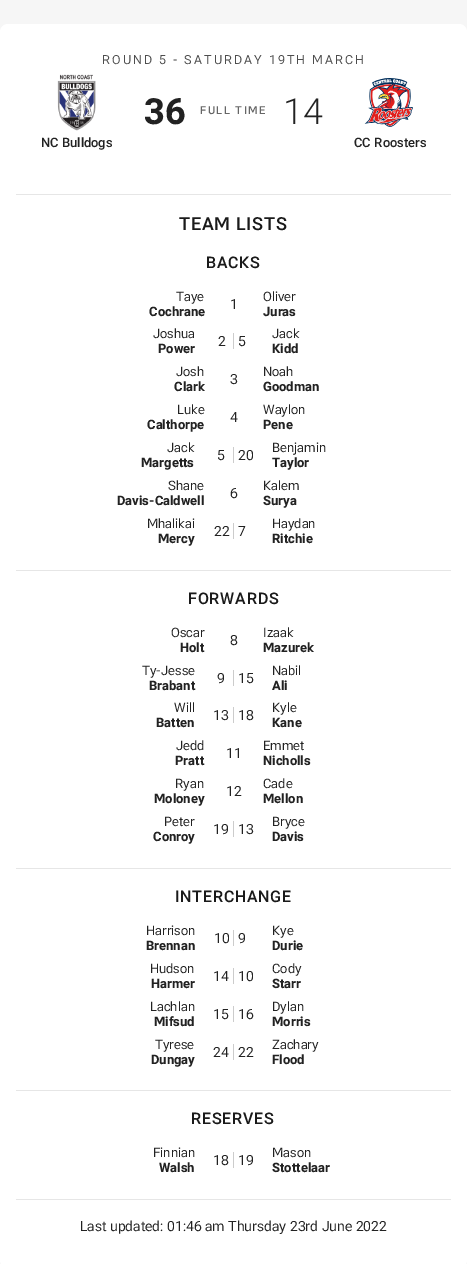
%!PS-Adobe-3.0
%%BoundingBox: 0 0 467 1264
%%LanguageLevel: 3
%%Pages: 1
%%EndComments
%%BeginProlog
/m { moveto } bind def
/f { fill } bind def
/fn { [ exch dup neg 0 0 3 -1 roll 0 0 ] selectfont } def
/tx { moveto show } def
/bx { rectfill } def
/rr { 5 dict begin { /r /h /w /y /x } { exch def } forall
  x r add y moveto x w add y 2 copy h add r arct x w add y h add x 1 index r arct
  x y h add x y r arct x y 2 copy exch w add exch r arct closepath end } def
/im { 5 dict begin { /h /w /y /x /name } { exch def } forall
  gsave x y translate w h scale
  w h 8 [w 0 0 h 0 0] name (r) file false 3 colorimage grestore end } def
%%EndProlog
%%BeginSetup
<< /PageSize [467 1264] >> setpagedevice
%%EndSetup
%%Page: 1 1
0 1264 translate 1 -1 scale
4 setmiterlimit
0.965 setgray
0 0 467 1264 bx
1 setgray
0 24 467 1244 8 rr f
/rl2-Regular 12.5 fn
0.302 setgray
102 64 m 2 0 (ROUND 5 - SATURDAY 19TH MARCH) ashow
/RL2-Bold 36 fn
0.133 setgray
(36) 144 124 tx
(image0.raw) 57 74 39 57 im
/RL2-Medium 13 fn
(NC Bulldogs) 41 147 tx
/RL2-Medium 11 fn
0.4 setgray
200 114 m 1.5 0 (FULL TIME) ashow
/RL2-Light 36 fn
0.133 setgray
(14) 283 124 tx
(image1.raw) 364 78 49 49 im
/RL2-Medium 13 fn
(CC Roosters) 354 147 tx
0.902 setgray
16 194 435 1 bx
/RL2-Medium 18 fn
0.102 setgray
179 230 m 0.75 0 (TEAM LISTS) ashow
/RL2-Medium 16 fn
206 268 m 0.75 0 (BACKS) ashow
/rl2-Regular 13 fn
0.133 setgray
(Taye) 176 301 tx
/RL2-Bold 13 fn
(Cochrane) 149 316 tx
/rl2-Regular 14 fn
(1) 230 309 tx
/rl2-Regular 13 fn
(Oliver) 263 301 tx
/RL2-Bold 13 fn
(Juras) 263 316 tx
/rl2-Regular 13 fn
(Joshua) 153 338 tx
/RL2-Bold 13 fn
(Power) 158 353 tx
/rl2-Regular 14 fn
(2) 218 346 tx
0.8 setgray
233 333 1 16 bx
0.133 setgray
(5) 238 346 tx
/rl2-Regular 13 fn
(Jack) 272 338 tx
/RL2-Bold 13 fn
(Kidd) 272 353 tx
/rl2-Regular 13 fn
(Josh) 176 376 tx
/RL2-Bold 13 fn
(Clark) 174 391 tx
/rl2-Regular 14 fn
(3) 230 384 tx
/rl2-Regular 13 fn
(Noah) 263 376 tx
/RL2-Bold 13 fn
(Goodman) 263 391 tx
/rl2-Regular 13 fn
(Luke) 177 414 tx
/RL2-Bold 13 fn
(Calthorpe) 147 429 tx
/rl2-Regular 14 fn
(4) 230 422 tx
/rl2-Regular 13 fn
(Waylon) 263 414 tx
/RL2-Bold 13 fn
(Pene) 263 429 tx
/rl2-Regular 13 fn
(Jack) 167 452 tx
/RL2-Bold 13 fn
(Margetts) 141 467 tx
/rl2-Regular 14 fn
(5) 217 460 tx
0.8 setgray
233 447 1 16 bx
0.133 setgray
(20) 238 460 tx
/rl2-Regular 13 fn
(Benjamin) 272 452 tx
/RL2-Bold 13 fn
(Taylor) 272 467 tx
/rl2-Regular 13 fn
(Shane) 168 490 tx
/RL2-Bold 13 fn
(Davis-Caldwell) 117 505 tx
/rl2-Regular 14 fn
(6) 230 498 tx
/rl2-Regular 13 fn
(Kalem) 263 490 tx
/RL2-Bold 13 fn
(Surya) 263 505 tx
/rl2-Regular 13 fn
(Mhalikai) 147 528 tx
/RL2-Bold 13 fn
(Mercy) 158 543 tx
/rl2-Regular 14 fn
(22) 214 536 tx
0.8 setgray
233 523 1 16 bx
0.133 setgray
(7) 238 536 tx
/rl2-Regular 13 fn
(Haydan) 272 528 tx
/RL2-Bold 13 fn
(Ritchie) 272 543 tx
0.902 setgray
16 570 435 1 bx
/RL2-Medium 16 fn
0.102 setgray
188 604 m 0.75 0 (FORWARDS) ashow
/rl2-Regular 13 fn
0.133 setgray
(Oscar) 171 637 tx
/RL2-Bold 13 fn
(Holt) 180 652 tx
/rl2-Regular 14 fn
(8) 230 645 tx
/rl2-Regular 13 fn
(Izaak) 263 637 tx
/RL2-Bold 13 fn
(Mazurek) 263 652 tx
/rl2-Regular 13 fn
(Ty-Jesse) 142 675 tx
/RL2-Bold 13 fn
(Brabant) 149 690 tx
/rl2-Regular 14 fn
(9) 217 683 tx
0.8 setgray
233 670 1 16 bx
0.133 setgray
(15) 238 683 tx
/rl2-Regular 13 fn
(Nabil) 272 675 tx
/RL2-Bold 13 fn
(Ali) 272 690 tx
/rl2-Regular 13 fn
(Will) 174 712 tx
/RL2-Bold 13 fn
(Batten) 156 727 tx
/rl2-Regular 14 fn
(13) 213 720 tx
0.8 setgray
233 707 1 16 bx
0.133 setgray
(18) 238 720 tx
/rl2-Regular 13 fn
(Kyle) 272 712 tx
/RL2-Bold 13 fn
(Kane) 272 727 tx
/rl2-Regular 13 fn
(Jedd) 176 750 tx
/RL2-Bold 13 fn
(Pratt) 175 765 tx
/rl2-Regular 14 fn
(11) 226 758 tx
/rl2-Regular 13 fn
(Emmet) 263 750 tx
/RL2-Bold 13 fn
(Nicholls) 263 765 tx
/rl2-Regular 13 fn
(Ryan) 175 788 tx
/RL2-Bold 13 fn
(Moloney) 154 803 tx
/rl2-Regular 14 fn
(12) 226 796 tx
/rl2-Regular 13 fn
(Cade) 263 788 tx
/RL2-Bold 13 fn
(Mellon) 263 803 tx
/rl2-Regular 13 fn
(Peter) 164 826 tx
/RL2-Bold 13 fn
(Conroy) 153 841 tx
/rl2-Regular 14 fn
(19) 213 834 tx
0.8 setgray
233 821 1 16 bx
0.133 setgray
(13) 238 834 tx
/rl2-Regular 13 fn
(Bryce) 272 826 tx
/RL2-Bold 13 fn
(Davis) 272 841 tx
0.902 setgray
16 868 435 1 bx
/RL2-Medium 16 fn
0.102 setgray
175 902 m 0.75 0 (INTERCHANGE) ashow
/rl2-Regular 13 fn
0.133 setgray
(Harrison) 146 935 tx
/RL2-Bold 13 fn
(Brennan) 146 950 tx
/rl2-Regular 14 fn
(10) 214 943 tx
0.8 setgray
233 930 1 16 bx
0.133 setgray
(9) 238 943 tx
/rl2-Regular 13 fn
(Kye) 272 935 tx
/RL2-Bold 13 fn
(Durie) 272 950 tx
/rl2-Regular 13 fn
(Hudson) 150 973 tx
/RL2-Bold 13 fn
(Harmer) 151 988 tx
/rl2-Regular 14 fn
(14) 213 981 tx
0.8 setgray
233 968 1 16 bx
0.133 setgray
(10) 238 981 tx
/rl2-Regular 13 fn
(Cody) 272 973 tx
/RL2-Bold 13 fn
(Starr) 272 988 tx
/rl2-Regular 13 fn
(Lachlan) 150 1011 tx
/RL2-Bold 13 fn
(Mifsud) 154 1026 tx
/rl2-Regular 14 fn
(15) 213 1019 tx
0.8 setgray
233 1006 1 16 bx
0.133 setgray
(16) 238 1019 tx
/rl2-Regular 13 fn
(Dylan) 272 1011 tx
/RL2-Bold 13 fn
(Morris) 272 1026 tx
/rl2-Regular 13 fn
(Tyrese) 155 1049 tx
/RL2-Bold 13 fn
(Dungay) 151 1064 tx
/rl2-Regular 14 fn
(24) 213 1057 tx
0.8 setgray
233 1044 1 16 bx
0.133 setgray
(22) 238 1057 tx
/rl2-Regular 13 fn
(Zachary) 272 1049 tx
/RL2-Bold 13 fn
(Flood) 272 1064 tx
0.902 setgray
16 1090 435 1 bx
/RL2-Medium 16 fn
0.102 setgray
191 1124 m 0.75 0 (RESERVES) ashow
/rl2-Regular 13 fn
0.133 setgray
(Finnian) 153 1157 tx
/RL2-Bold 13 fn
(Walsh) 159 1172 tx
/rl2-Regular 14 fn
(18) 213 1165 tx
0.8 setgray
233 1152 1 16 bx
0.133 setgray
(19) 238 1165 tx
/rl2-Regular 13 fn
(Mason) 272 1157 tx
/RL2-Bold 13 fn
(Stottelaar) 272 1172 tx
0.902 setgray
16 1199 435 1 bx
/rl2-Regular 14 fn
0.133 setgray
(Last updated: 01:46 am Thursday 23rd June 2022) 80 1231 tx
showpage
%%EOF
